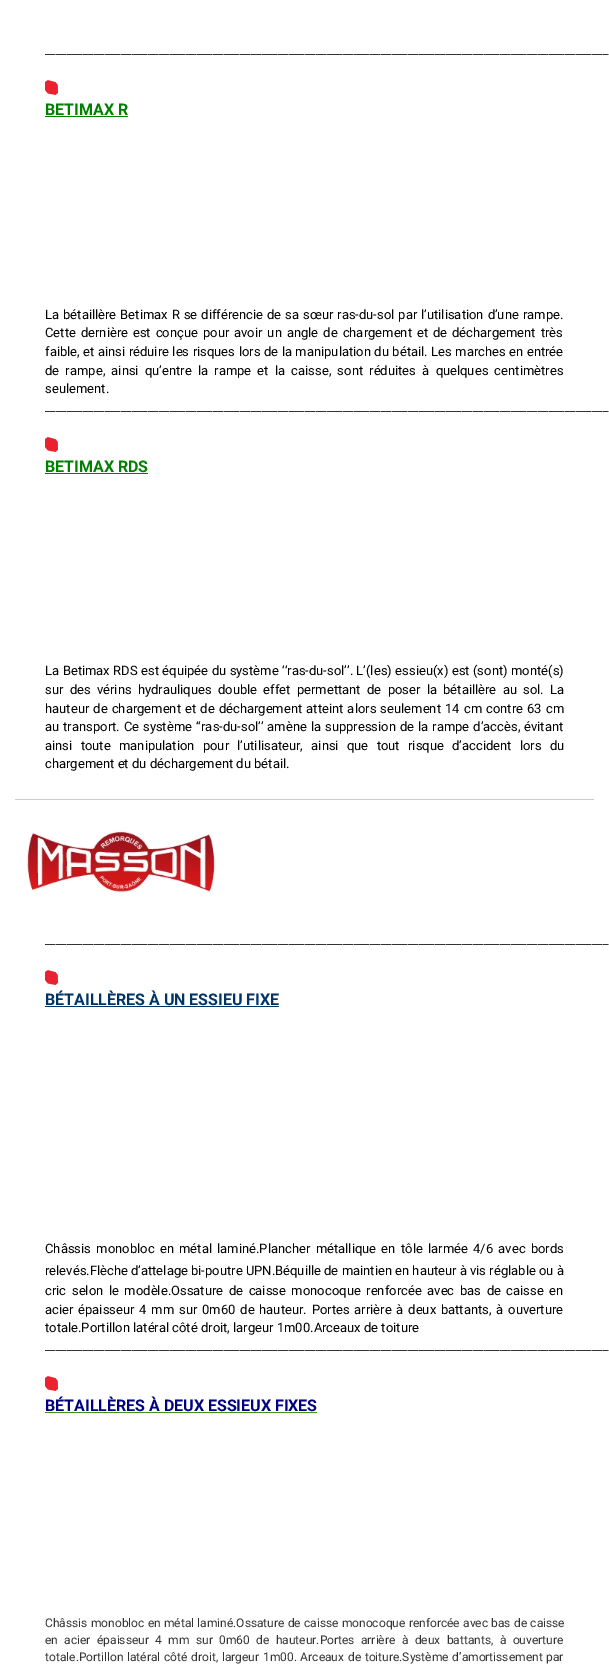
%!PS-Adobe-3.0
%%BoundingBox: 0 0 609 1666
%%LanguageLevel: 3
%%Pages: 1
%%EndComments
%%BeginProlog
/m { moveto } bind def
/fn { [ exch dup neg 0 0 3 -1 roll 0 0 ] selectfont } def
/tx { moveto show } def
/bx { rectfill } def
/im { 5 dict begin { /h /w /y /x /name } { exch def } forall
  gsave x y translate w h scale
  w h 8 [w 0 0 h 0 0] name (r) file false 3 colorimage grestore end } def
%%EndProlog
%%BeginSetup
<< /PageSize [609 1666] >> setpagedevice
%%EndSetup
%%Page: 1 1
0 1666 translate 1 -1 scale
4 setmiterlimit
1 setgray
0 0 609 1666 bx
0.8 setgray
15 799 579 1 bx
/Roboto-Regular 12 fn
0.2 setgray
(________________________________________________________________________________________________________) 45 54 tx
(image0.raw) 45 80 13 15 im
/Roboto-Bold 16 fn
0 0.502 0 setrgbcolor
(BETIMAX R) 45 115 tx
45 116 83 1 bx
/Roboto-Regular 13 fn
0 setgray
45 319 m 0.8 0 32 (La bétaillère Betimax R se différencie de sa sœur ras-du-sol par l’utilisation d’une rampe.) widthshow
45 337 m 1.75 0 32 (Cette dernière est conçue pour avoir un angle de chargement et de déchargement très) widthshow
45 356 m 0.3 0 32 (faible, et ainsi réduire les risques lors de la manipulation du bétail. Les marches en entrée) widthshow
45 375 m 3 0 32 (de rampe, ainsi qu’entre la rampe et la caisse, sont réduites à quelques centimètres) widthshow
(seulement.) 45 393 tx
/Roboto-Regular 12 fn
0.2 setgray
(________________________________________________________________________________________________________) 45 411 tx
(image0.raw) 45 437 13 15 im
/Roboto-Bold 16 fn
0 0.502 0 setrgbcolor
(BETIMAX RDS) 45 472 tx
45 473 103 1 bx
/Roboto-Regular 13 fn
0 setgray
45 675 m 0.25 0 32 (La Betimax RDS est équipée du système ‘‘ras-du-sol’’. L’\(les\) essieu\(x\) est \(sont\) monté\(s\)) widthshow
45 694 m 3.1 0 32 (sur des vérins hydrauliques double effet permettant de poser la bétaillère au sol. La) widthshow
45 713 m 0.9 0 32 (hauteur de chargement et de déchargement atteint alors seulement 14 cm contre 63 cm) widthshow
45 731 m 0.75 0 32 (au transport. Ce système ‘‘ras-du-sol’’ amène la suppression de la rampe d’accès, évitant) widthshow
45 750 m 5.1 0 32 (ainsi toute manipulation pour l’utilisateur, ainsi que tout risque d’accident lors du) widthshow
(chargement et du déchargement du bétail.) 45 768 tx
(image1.raw) 26 831 190 62 im
/Roboto-Regular 12 fn
0.2 setgray
(________________________________________________________________________________________________________) 45 944 tx
(image0.raw) 45 970 13 15 im
/Roboto-Bold 16 fn
0 0.2 0.4 setrgbcolor
(BÉTAILLÈRES À UN ESSIEU FIXE) 45 1005 tx
45 1006 234 1 bx
/Roboto-Regular 13 fn
0 setgray
45 1253 m 2.1 0 32 (Châssis monobloc en métal laminé.Plancher métallique en tôle larmée 4/6 avec bords) widthshow
(relevés.Flèche d’attelage bi-poutre UPN.Béquille de maintien en hauteur à vis réglable ou à) 45 1275 tx
45 1295 m 2.4 0 32 (cric selon le modèle.Ossature de caisse monocoque renforcée avec bas de caisse en) widthshow
45 1314 m 1.6 0 32 (acier épaisseur 4 mm sur 0m60 de hauteur. Portes arrière à deux battants, à ouverture) widthshow
(totale.Portillon latéral côté droit, largeur 1m00.Arceaux de toiture) 45 1332 tx
/Roboto-Regular 12 fn
0.2 setgray
(________________________________________________________________________________________________________) 45 1350 tx
(image0.raw) 45 1376 13 15 im
/Roboto-Bold 16 fn
0 0 0.502 setrgbcolor
(BÉTAILLÈRES À DEUX ESSIEUX FIXES) 45 1411 tx
0.259 0.569 0.082 setrgbcolor
45 1412 272 1 bx
/Roboto-Regular 12 fn
0.2 setgray
45 1627 m 0.25 0 32 (Châssis monobloc en métal laminé.Ossature de caisse monocoque renforcée avec bas de caisse) widthshow
45 1644 m 3.4 0 32 (en acier épaisseur 4 mm sur 0m60 de hauteur.Portes arrière à deux battants, à ouverture) widthshow
45 1661 m 0.75 0 32 (totale.Portillon latéral côté droit, largeur 1m00. Arceaux de toiture.Système d’amortissement par) widthshow
showpage
%%EOF
